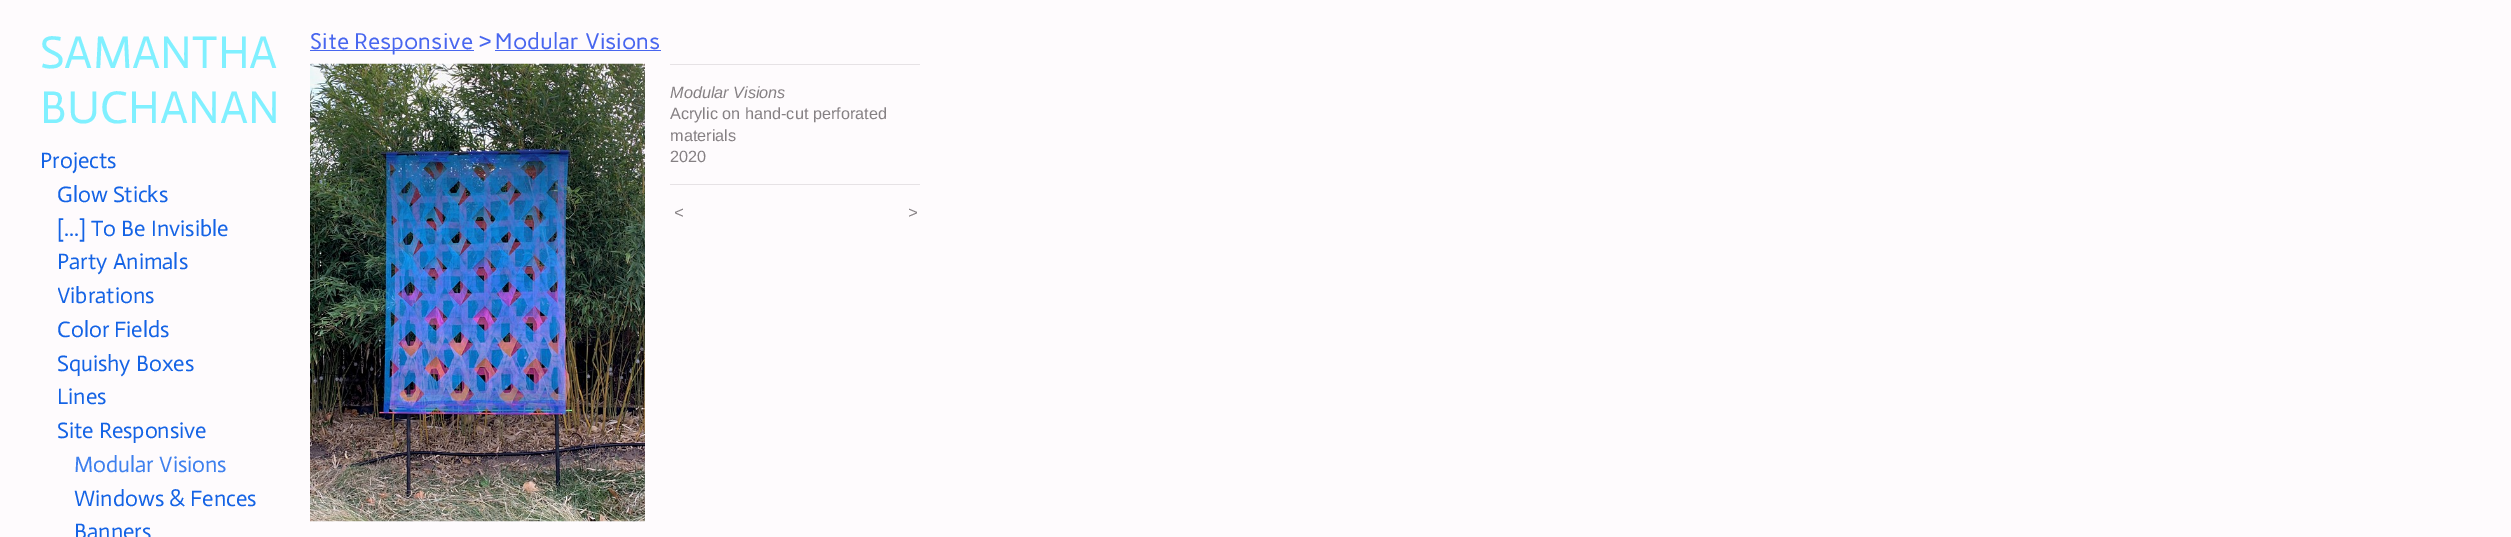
%!PS-Adobe-3.0
%%BoundingBox: 0 0 2511 537
%%LanguageLevel: 3
%%Pages: 1
%%EndComments
%%BeginProlog
/m { moveto } bind def
/q { gsave } bind def
/Q { grestore } bind def
/fn { [ exch dup neg 0 0 3 -1 roll 0 0 ] selectfont } def
/tx { moveto show } def
/bx { rectfill } def
/im { 5 dict begin { /h /w /y /x /name } { exch def } forall
  gsave x y translate w h scale
  w h 8 [w 0 0 h 0 0] name (r) file false 3 colorimage grestore end } def
%%EndProlog
%%BeginSetup
<< /PageSize [2511 537] >> setpagedevice
%%EndSetup
%%Page: 1 1
0 537 translate 1 -1 scale
4 setmiterlimit
0.996 0.984 0.992 setrgbcolor
0 0 2511 537 bx
/Actor-Regular 46.25 fn
0.502 0.941 1 setrgbcolor
(SAMANTHA) 40 68 tx
(BUCHANAN) 40 123 tx
/Actor-Regular 22.5 fn
0.078 0.388 0.898 setrgbcolor
(Projects) 40 168 tx
(Glow Sticks) 57 202 tx
([...] To Be Invisible) 57 236 tx
(Party Animals) 57 269 tx
q
58 280 232 34 rectclip
(Vibrations) 57 303 tx
Q
(Color Fields) 57 337 tx
(Squishy Boxes) 57 371 tx
(Lines) 57 404 tx
(Site Responsive) 57 438 tx
0.243 0.502 0.933 setrgbcolor
(Modular Visions) 74 472 tx
0.078 0.388 0.898 setrgbcolor
(Windows & Fences) 74 506 tx
(Banners) 74 539 tx
0.282 0.4 0.937 setrgbcolor
310 50 164 1 bx
/Carme-Regular 22.5 fn
(Site Responsive > Modular Visions) 310 49 tx
495 50 166 1 bx
(image0.raw) 310 63 335 459 im
0.902 0.886 0.898 setrgbcolor
670 64 250 1 bx
/LiberationSans-Italic 16.25 fn
0.522 0.502 0.514 setrgbcolor
(Modular Visions) 670 98 tx
/LiberationSans-Regular 16.25 fn
(Acrylic on hand-cut perforated) 670 119 tx
(materials) 670 141 tx
(2020) 670 162 tx
0.902 0.886 0.898 setrgbcolor
670 184 250 1 bx
/LiberationSans-Italic 16.25 fn
0.522 0.502 0.514 setrgbcolor
674 218 m 1 0 (<) ashow
908 218 m 1 0 (>) ashow
showpage
%%EOF
